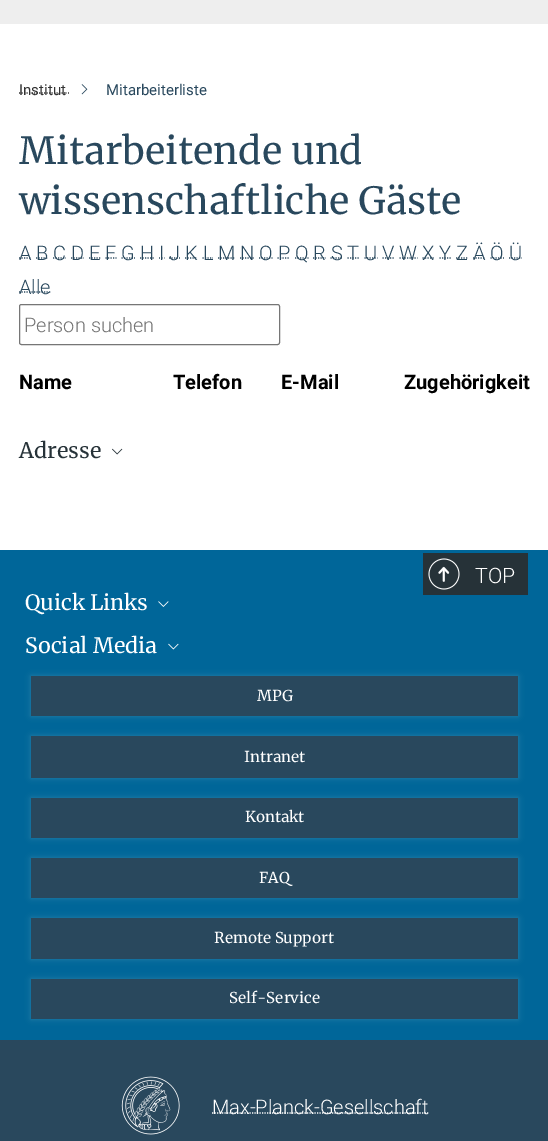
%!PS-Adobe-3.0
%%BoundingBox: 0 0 548 1141
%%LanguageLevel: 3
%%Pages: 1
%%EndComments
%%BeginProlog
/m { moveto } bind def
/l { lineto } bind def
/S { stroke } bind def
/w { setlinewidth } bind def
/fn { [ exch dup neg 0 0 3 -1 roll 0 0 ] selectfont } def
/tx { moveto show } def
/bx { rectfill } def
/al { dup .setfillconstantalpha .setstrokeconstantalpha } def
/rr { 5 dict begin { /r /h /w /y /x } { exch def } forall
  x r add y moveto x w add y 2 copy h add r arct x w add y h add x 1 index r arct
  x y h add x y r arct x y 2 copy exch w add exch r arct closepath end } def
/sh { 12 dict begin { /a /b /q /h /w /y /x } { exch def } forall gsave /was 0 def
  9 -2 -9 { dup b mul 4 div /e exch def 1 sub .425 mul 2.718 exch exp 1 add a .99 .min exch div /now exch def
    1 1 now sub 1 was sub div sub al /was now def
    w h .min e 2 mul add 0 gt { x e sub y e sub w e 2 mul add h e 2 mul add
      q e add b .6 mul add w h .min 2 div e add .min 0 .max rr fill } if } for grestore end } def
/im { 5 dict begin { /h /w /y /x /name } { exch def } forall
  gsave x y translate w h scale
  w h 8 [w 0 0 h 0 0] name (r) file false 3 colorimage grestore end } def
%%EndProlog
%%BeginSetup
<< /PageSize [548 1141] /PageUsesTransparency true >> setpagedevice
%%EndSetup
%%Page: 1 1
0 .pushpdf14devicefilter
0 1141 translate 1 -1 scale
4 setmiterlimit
1 setgray
0 0 548 1141 bx
0.933 setgray
0 0 548 24 bx
0.2 setgray
1.2 w
[1.25 1.25] 0 setdash
19 93 m 65.5 93 l S
/Roboto-Regular 15 fn
(Institut) 19 95 tx
[] 0 setdash
65.5 93 m 66.5 93 l 68 93 m 69 93 l S
(image0.raw) 81 84 7 11 im
0.161 0.282 0.365 setrgbcolor
(Mitarbeiterliste) 106 95 tx
/Merriweather-Regular 37.5 fn
(Mitarbeitende und) 19 164 tx
(wissenschaftliche Gäste) 19 214 tx
[1.25 1.25] 0 setdash
19 258 m 31 258 l S
/Roboto-Light 20 fn
(A) 19 260 tx
36 258 m 48.5 258 l S
(B) 36 260 tx
53 258 m 66 258 l S
(C) 53 260 tx
71 258 m 84 258 l S
(D) 71 260 tx
89 258 m 100.5 258 l S
(E) 89 260 tx
105.5 258 m 116.5 258 l S
(F) 105 260 tx
121.5 258 m 135 258 l S
(G) 121 260 tx
140 258 m 154 258 l S
(H) 140 260 tx
[] 0 setdash
159 258 m 160 258 l 161.5 258 m 162.5 258 l 164 258 m 164.5 258 l S
(I) 159 260 tx
[1.25 1.25] 0 setdash
169 258 m 180 258 l S
(J) 169 260 tx
185 258 m 197.5 258 l S
(K) 185 260 tx
202.5 258 m 213 258 l S
(L) 203 260 tx
218 258 m 235.5 258 l S
(M) 218 260 tx
240 258 m 254.5 258 l S
(N) 240 260 tx
259 258 m 272.5 258 l S
(O) 259 260 tx
277.5 258 m 290 258 l S
(P) 278 260 tx
295 258 m 308.5 258 l S
(Q) 295 260 tx
313 258 m 326 258 l S
(R) 313 260 tx
330.5 258 m 342.5 258 l S
(S) 331 260 tx
347.5 258 m 359.5 258 l S
(T) 347 260 tx
364.5 258 m 377.5 258 l S
(U) 364 260 tx
382.5 258 m 394.5 258 l S
(V) 382 260 tx
399.5 258 m 417.5 258 l S
(W) 399 260 tx
422.5 258 m 434.5 258 l S
(X) 422 260 tx
439.5 258 m 451.5 258 l S
(Y) 439 260 tx
456 258 m 468 258 l S
(Z) 456 260 tx
473 258 m 485.5 258 l S
(Ä) 473 260 tx
490.5 258 m 504 258 l S
(Ö) 490 260 tx
509 258 m 522 258 l S
(Ü) 509 260 tx
19 292 m 50.5 292 l S
(Alle) 19 294 tx
0.463 setgray
1 w
[] 0 setdash
19.5 304.5 260 40 2 rr S
0.459 setgray
(Person suchen) 24 332 tx
/Roboto-Bold 20 fn
0 setgray
(Name) 19 389 tx
(Telefon) 173 389 tx
(E-Mail) 281 389 tx
(Zugehörigkeit) 404 389 tx
/Merriweather-Regular 21.25 fn
0.149 0.196 0.22 setrgbcolor
(Adresse) 19 458 tx
(image1.raw) 112 448 11 7 im
0 0.4 0.6 setrgbcolor
0 550 548 490 bx
0.149 0.196 0.22 setrgbcolor
423 553 105 42 bx
(image2.raw) 438 566 12 16 im
(image3.raw) 428 558 32 32 im
/Roboto-Light 21.25 fn
1 setgray
(TOP) 475 583 tx
/Merriweather-Regular 21.25 fn
(Quick Links) 25 610 tx
(image4.raw) 158 601 11 6 im
(Social Media) 25 653 tx
(image5.raw) 168 643 11 7 im
31 676 487 40 0 3 0.15 sh
0.161 0.282 0.365 setrgbcolor
31 676 487 40 bx
/Merriweather-Regular 15 fn
1 setgray
(MPG) 257 701 tx
31 736 487 42 0 3 0.15 sh
0.161 0.282 0.365 setrgbcolor
31 736 487 42 bx
1 setgray
(Intranet) 244 762 tx
31 798 487 40 0 3 0.15 sh
0.161 0.282 0.365 setrgbcolor
31 798 487 40 bx
1 setgray
(Kontakt) 245 822 tx
31 858 487 40 0 3 0.15 sh
0.161 0.282 0.365 setrgbcolor
31 858 487 40 bx
1 setgray
(FAQ) 259 883 tx
31 918 487 41 0 3 0.15 sh
0.161 0.282 0.365 setrgbcolor
31 918 487 41 bx
1 setgray
(Remote Support) 214 943 tx
31 979 487 40 0 3 0.15 sh
0.161 0.282 0.365 setrgbcolor
31 979 487 40 bx
1 setgray
(Self-Service) 229 1003 tx
0.161 0.282 0.365 setrgbcolor
0 1040 548 101 bx
(image6.raw) 121 1076 59 59 im
1 setgray
1.2 w
[1.25 1.25] 0 setdash
212 1113 m 428.5 1113 l S
/Roboto-Light 20 fn
(Max-Planck-Gesellschaft) 212 1114 tx
.poppdf14devicefilter showpage
%%EOF
